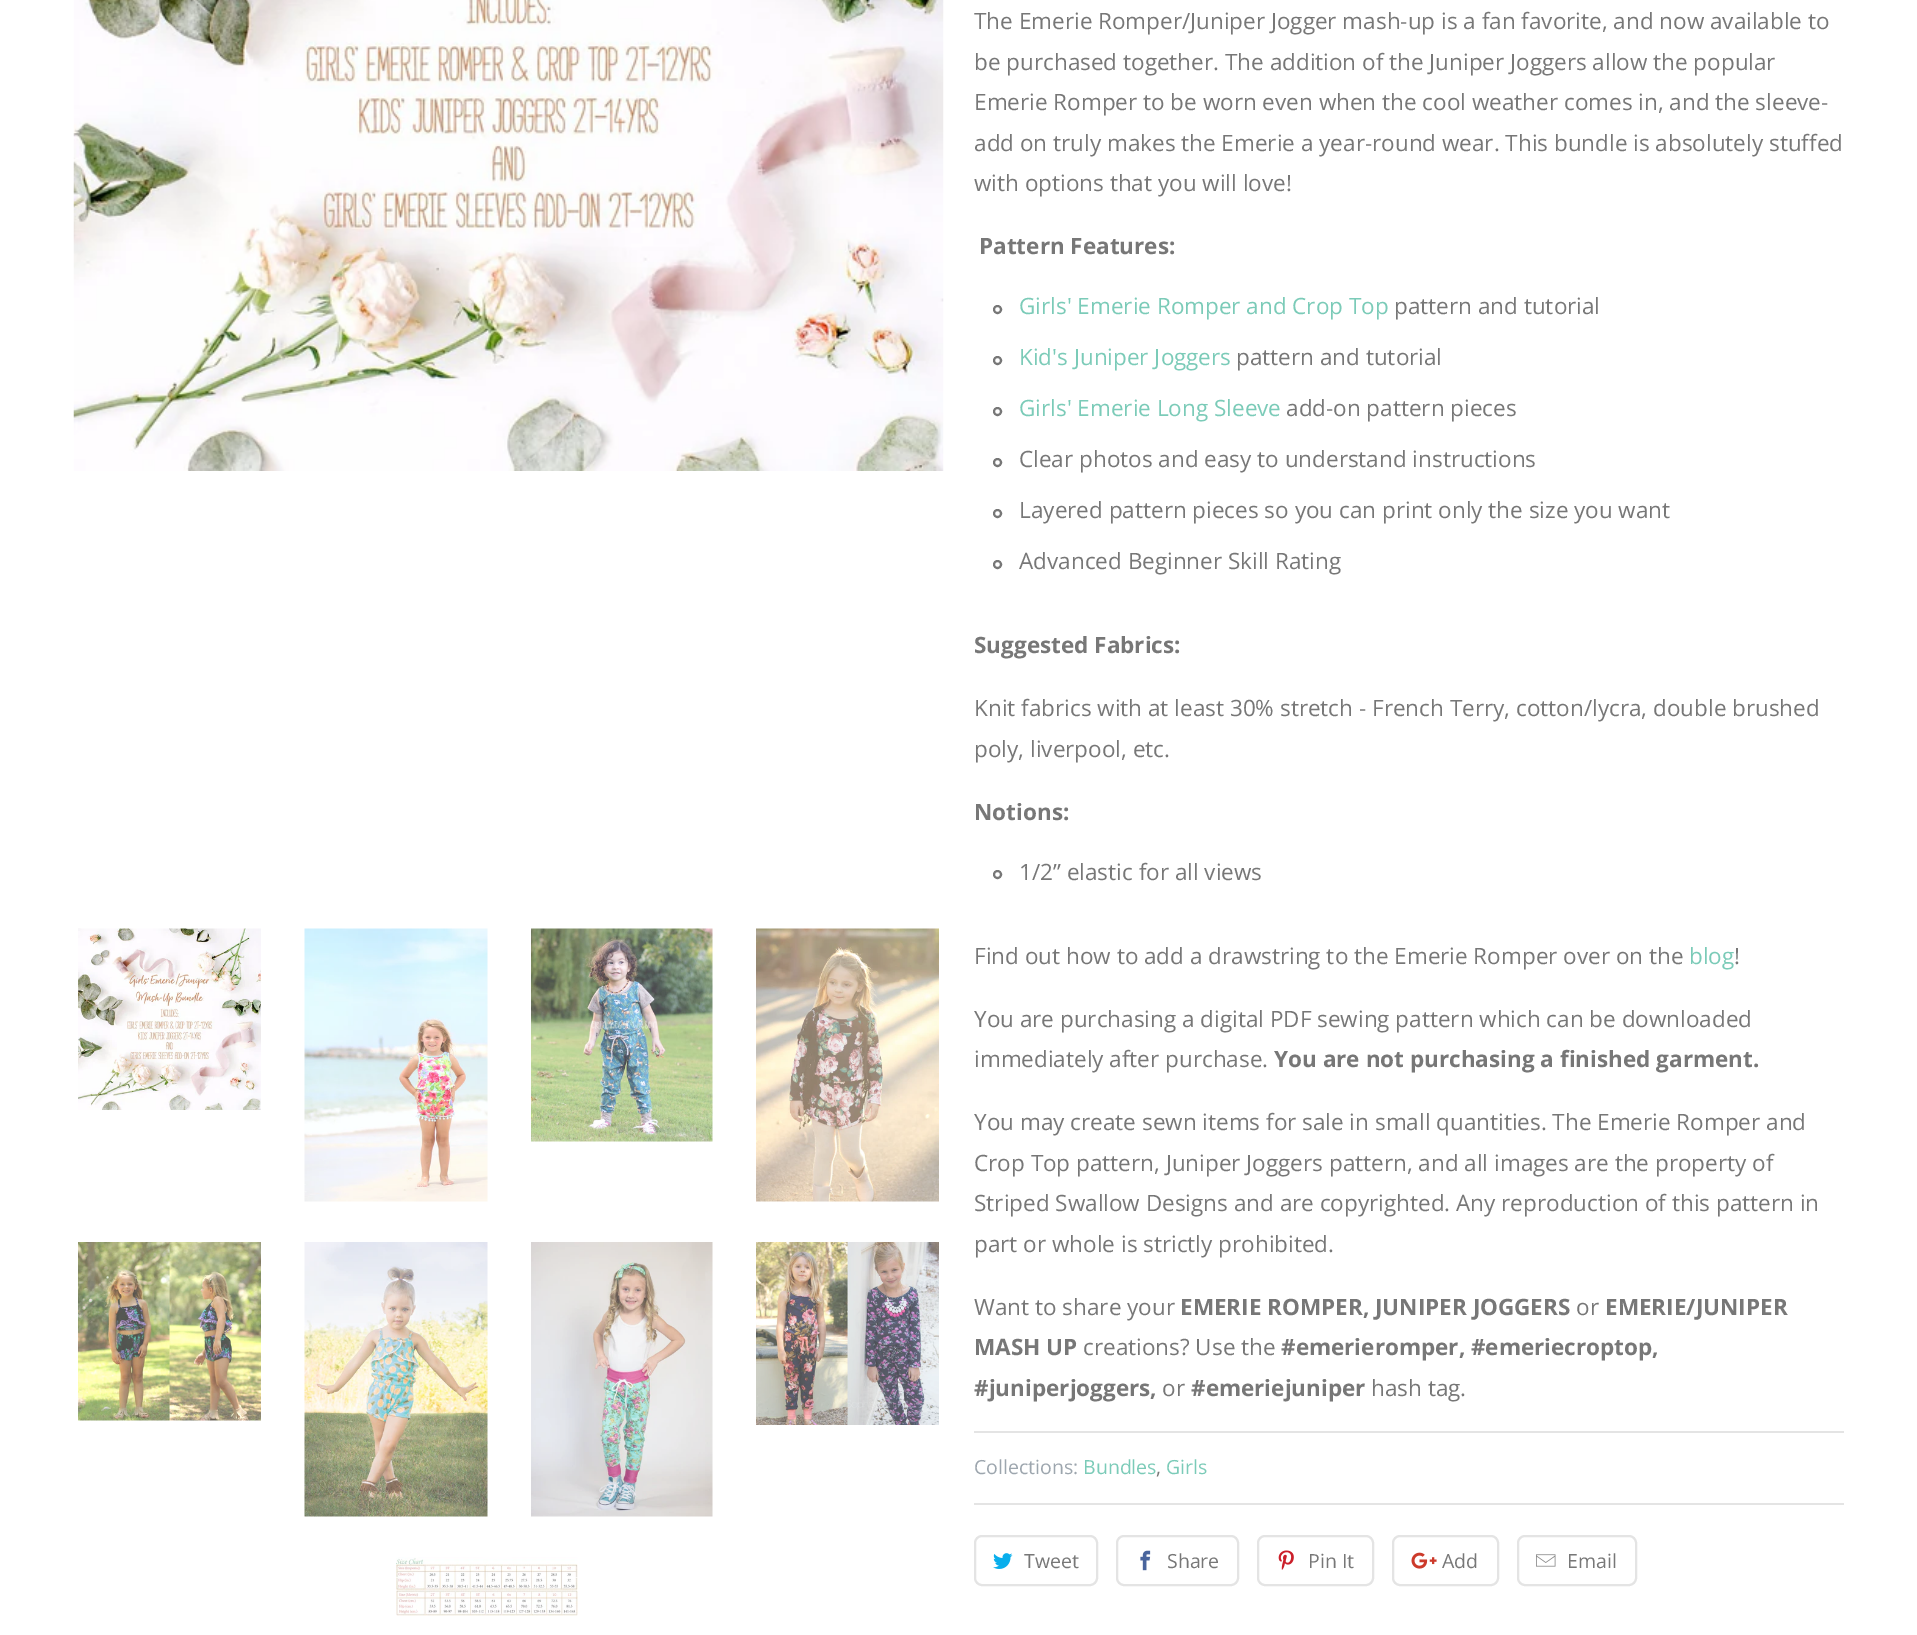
%!PS-Adobe-3.0
%%BoundingBox: 0 0 1917 1635
%%LanguageLevel: 3
%%Pages: 1
%%EndComments
%%BeginProlog
/S { stroke } bind def
/w { setlinewidth } bind def
/fn { [ exch dup neg 0 0 3 -1 roll 0 0 ] selectfont } def
/tx { moveto show } def
/bx { rectfill } def
/ci { newpath 0 360 arc closepath } def
/rr { 5 dict begin { /r /h /w /y /x } { exch def } forall
  x r add y moveto x w add y 2 copy h add r arct x w add y h add x 1 index r arct
  x y h add x y r arct x y 2 copy exch w add exch r arct closepath end } def
/im { 5 dict begin { /h /w /y /x /name } { exch def } forall
  gsave x y translate w h scale
  w h 8 [w 0 0 h 0 0] name (r) file false 3 colorimage grestore end } def
%%EndProlog
%%BeginSetup
<< /PageSize [1917 1635] >> setpagedevice
%%EndSetup
%%Page: 1 1
0 1635 translate 1 -1 scale
4 setmiterlimit
1 setgray
0 0 1917 1635 bx
(image0.raw) 73 0 871 471 im
(image1.raw) 78 928 183 182 im
(image2.raw) 304 928 184 274 im
(image3.raw) 531 928 182 214 im
(image4.raw) 756 928 183 274 im
(image5.raw) 78 1242 183 179 im
(image6.raw) 304 1242 184 275 im
(image7.raw) 531 1242 182 275 im
(image8.raw) 756 1242 183 183 im
(image9.raw) 396 1557 182 59 im
/OpenSans-Regular 22.5 fn
0.467 setgray
(The Emerie Romper/Juniper Jogger mash-up is a fan favorite, and now available to) 974 29 tx
(be purchased together. The addition of the Juniper Joggers allow the popular) 974 70 tx
(Emerie Romper to be worn even when the cool weather comes in, and the sleeve-) 974 110 tx
(add on truly makes the Emerie a year-round wear. This bundle is absolutely stuffed) 974 151 tx
(with options that you will love!) 974 191 tx
/OpenSans-Bold 22.5 fn
(Pattern Features:) 979 254 tx
2 w
997.5 309.5 3.5 ci S
/OpenSans-Regular 22.5 fn
0.482 0.796 0.722 setrgbcolor
(Girls' Emerie Romper and Crop Top) 1019 314 tx
0.467 setgray
(pattern and tutorial) 1394 314 tx
997.5 360.5 3.5 ci S
0.482 0.796 0.722 setrgbcolor
(Kid's Juniper Joggers) 1019 365 tx
0.467 setgray
(pattern and tutorial) 1236 365 tx
997.5 411.5 3.5 ci S
0.482 0.796 0.722 setrgbcolor
(Girls' Emerie Long Sleeve) 1019 416 tx
0.467 setgray
(add-on pattern pieces) 1286 416 tx
997.5 462.5 3.5 ci S
(Clear photos and easy to understand instructions) 1019 467 tx
997.5 513.5 3.5 ci S
(Layered pattern pieces so you can print only the size you want) 1019 518 tx
997.5 564.5 3.5 ci S
(Advanced Beginner Skill Rating) 1019 569 tx
/OpenSans-Bold 22.5 fn
(Suggested Fabrics:) 974 653 tx
/OpenSans-Regular 22.5 fn
(Knit fabrics with at least 30% stretch - French Terry, cotton/lycra, double brushed) 974 716 tx
(poly, liverpool, etc.) 974 757 tx
/OpenSans-Bold 22.5 fn
(Notions:) 974 820 tx
997.5 874.5 3.5 ci S
/OpenSans-Regular 22.5 fn
(1/2” elastic for all views) 1019 880 tx
(Find out how to add a drawstring to the Emerie Romper over on the) 974 964 tx
0.482 0.796 0.722 setrgbcolor
(blog) 1689 964 tx
0.467 setgray
(!) 1734 964 tx
(You are purchasing a digital PDF sewing pattern which can be downloaded) 974 1027 tx
(immediately after purchase.) 974 1067 tx
/OpenSans-Bold 22.5 fn
(You are not purchasing a finished garment.) 1274 1067 tx
/OpenSans-Regular 22.5 fn
(You may create sewn items for sale in small quantities. The Emerie Romper and) 974 1130 tx
(Crop Top pattern, Juniper Joggers pattern, and all images are the property of) 974 1171 tx
(Striped Swallow Designs and are copyrighted. Any reproduction of this pattern in) 974 1211 tx
(part or whole is strictly prohibited.) 974 1252 tx
(Want to share your) 974 1315 tx
/OpenSans-Bold 22.5 fn
(EMERIE ROMPER, JUNIPER JOGGERS) 1180 1315 tx
/OpenSans-Regular 22.5 fn
(or) 1576 1315 tx
/OpenSans-Bold 22.5 fn
(EMERIE/JUNIPER) 1605 1315 tx
(MASH UP) 974 1355 tx
/OpenSans-Regular 22.5 fn
(creations? Use the) 1083 1355 tx
/OpenSans-Bold 22.5 fn
(#emerieromper, #emeriecroptop,) 1281 1355 tx
(#juniperjoggers,) 974 1396 tx
/OpenSans-Regular 22.5 fn
(or) 1162 1396 tx
/OpenSans-Bold 22.5 fn
(#emeriejuniper) 1191 1396 tx
/OpenSans-Regular 22.5 fn
(hash tag.) 1371 1396 tx
0.894 setgray
974 1431 870 2 bx
/OpenSans-Regular 19.5 fn
0.616 0.651 0.682 setrgbcolor
(Collections:) 974 1474 tx
0.482 0.796 0.722 setrgbcolor
(Bundles) 1083 1474 tx
0.467 setgray
(,) 1156 1474 tx
0.482 0.796 0.722 setrgbcolor
(Girls) 1166 1474 tx
0.894 setgray
974 1503 870 2 bx
975 1536 122 49 7 rr S
(image10.raw) 993 1553 20 16 im
0.467 setgray
(Tweet) 1024 1568 tx
0.894 setgray
1117 1536 121 49 7 rr S
(image11.raw) 1140 1550 11 21 im
0.467 setgray
(Share) 1167 1568 tx
0.894 setgray
1258 1536 115 49 7 rr S
(image12.raw) 1278 1550 16 20 im
0.467 setgray
(Pin It) 1308 1568 tx
0.894 setgray
1393 1536 105 49 7 rr S
(image13.raw) 1411 1552 26 17 im
0.467 setgray
(Add) 1442 1568 tx
0.894 setgray
1518 1536 118 49 7 rr S
(image14.raw) 1536 1554 20 13 im
0.467 setgray
(Email) 1567 1568 tx
showpage
%%EOF
